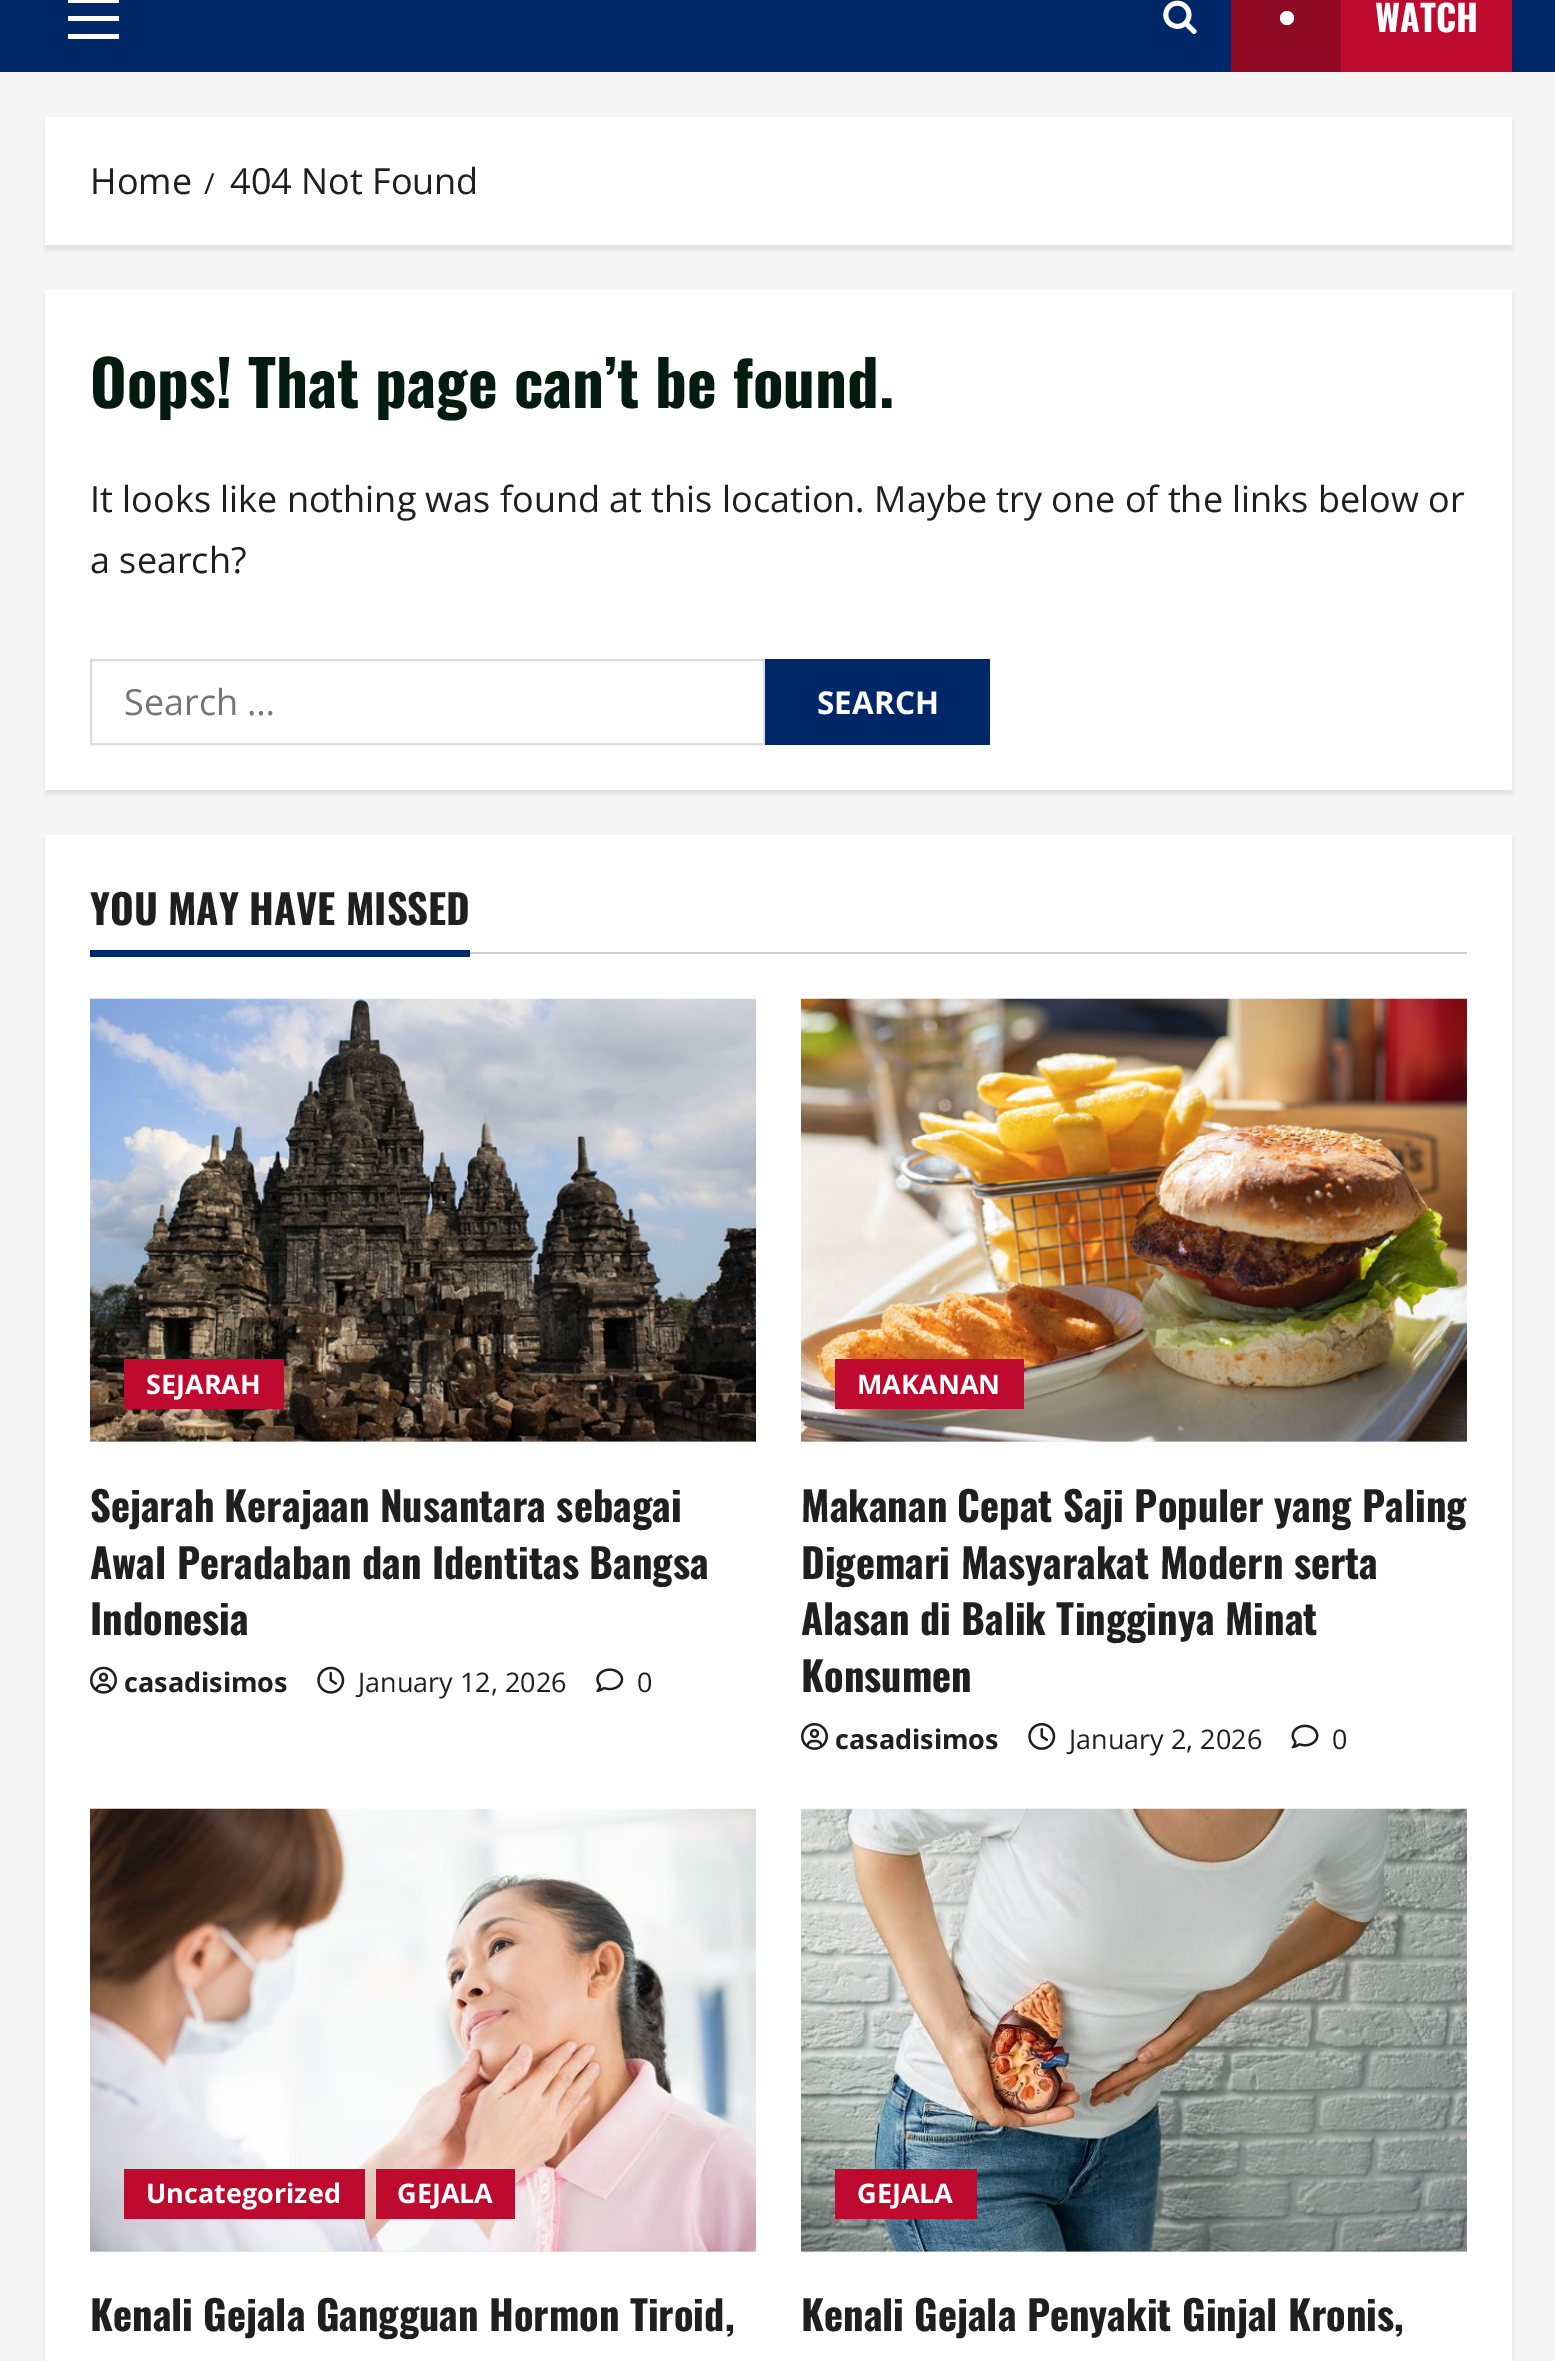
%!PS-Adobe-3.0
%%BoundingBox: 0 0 1555 2361
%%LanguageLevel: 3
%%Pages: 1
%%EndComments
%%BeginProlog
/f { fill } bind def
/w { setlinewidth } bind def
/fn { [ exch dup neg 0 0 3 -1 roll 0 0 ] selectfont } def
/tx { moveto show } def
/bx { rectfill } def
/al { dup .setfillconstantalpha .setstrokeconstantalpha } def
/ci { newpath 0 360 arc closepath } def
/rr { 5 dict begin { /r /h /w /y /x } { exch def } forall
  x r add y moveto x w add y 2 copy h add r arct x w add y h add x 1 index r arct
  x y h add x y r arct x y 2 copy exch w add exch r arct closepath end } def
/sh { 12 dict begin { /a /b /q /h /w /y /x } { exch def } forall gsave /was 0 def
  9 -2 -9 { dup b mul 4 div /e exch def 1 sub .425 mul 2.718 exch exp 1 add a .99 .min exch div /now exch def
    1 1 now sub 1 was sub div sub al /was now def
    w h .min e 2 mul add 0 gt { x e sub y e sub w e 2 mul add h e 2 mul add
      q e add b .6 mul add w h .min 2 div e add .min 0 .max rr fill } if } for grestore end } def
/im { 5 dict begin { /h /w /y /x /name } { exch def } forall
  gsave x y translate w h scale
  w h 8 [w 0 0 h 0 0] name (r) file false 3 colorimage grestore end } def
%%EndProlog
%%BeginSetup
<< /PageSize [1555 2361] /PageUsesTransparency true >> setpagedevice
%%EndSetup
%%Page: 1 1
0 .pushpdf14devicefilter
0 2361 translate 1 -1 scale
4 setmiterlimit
0.961 setgray
0 0 1555 2361 bx
0 0.157 0.408 setrgbcolor
0 0 1555 72 bx
1 setgray
68 16 51 5 bx
68 0 51 3 bx
68 34 51 5 bx
(image0.raw) 1163 0 34 34 im
0.749 0.039 0.188 setrgbcolor
1341 0 171 72 bx
0.561 0.031 0.141 setrgbcolor
1231 0 110 72 bx
1 setgray
1287 18 7 ci f
/Oswald-Bold 36 fn
(WATCH) 1375 32 tx
0 setgray
45 122 1467 128 0 2 0.08 sh
1 setgray
45 117 1467 128 bx
/OpenSans-Regular 36 fn
0.122 setgray
(Home) 90 194 tx
/OpenSans-Regular 29 fn
(/) 204 194 tx
/OpenSans-Regular 36 fn
(404 Not Found) 230 194 tx
0 setgray
45 295 1467 499 0 2 0.08 sh
1 setgray
45 290 1467 500 bx
/Oswald-Bold 63 fn
0.012 0.106 0.067 setrgbcolor
(Oops! That page can’t be found.) 90 408 tx
/OpenSans-Regular 36 fn
0.122 setgray
(It looks like nothing was found at this location. Maybe try one of the links below or) 90 512 tx
(a search?) 90 573 tx
0.863 setgray
2 w
91 660 673 84 rectstroke
0.459 setgray
(Search …) 124 715 tx
0 0.157 0.408 setrgbcolor
765 659 225 86 bx
/OpenSans-Bold 31.5 fn
1 setgray
(SEARCH) 817 714 tx
0 setgray
45 839 1467 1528 0 2 0.08 sh
1 setgray
45 835 1467 1526 bx
0.8 setgray
470 952 997 2 bx
/Oswald-Bold 40.5 fn
0.122 setgray
(YOU MAY HAVE MISSED) 90 925 tx
0 0.157 0.408 setrgbcolor
90 950 380 7 bx
0.925 setgray
90 1441 666 1 bx
(image1.raw) 90 998 666 444 im
0.749 0.039 0.188 setrgbcolor
124 1359 160 50 bx
/OpenSans-Bold 27 fn
1 setgray
(SEJARAH) 146 1394 tx
/Oswald-Bold 40.5 fn
0.122 setgray
(Sejarah Kerajaan Nusantara sebagai) 90 1522 tx
(Awal Peradaban dan Identitas Bangsa) 90 1579 tx
(Indonesia) 90 1635 tx
(image2.raw) 90 1666 27 28 im
/OpenSans-Bold 27 fn
(casadisimos) 124 1692 tx
(image3.raw) 317 1666 28 28 im
/OpenSans-Regular 27 fn
(January 12, 2026) 358 1692 tx
(image4.raw) 596 1668 28 24 im
(0) 637 1692 tx
0.925 setgray
801 1441 666 1 bx
(image5.raw) 801 998 666 444 im
0.749 0.039 0.188 setrgbcolor
835 1359 189 50 bx
/OpenSans-Bold 27 fn
1 setgray
(MAKANAN) 857 1394 tx
/Oswald-Bold 40.5 fn
0.122 setgray
(Makanan Cepat Saji Populer yang Paling) 801 1522 tx
(Digemari Masyarakat Modern serta) 801 1579 tx
(Alasan di Balik Tingginya Minat) 801 1635 tx
(Konsumen) 801 1692 tx
(image6.raw) 801 1722 27 28 im
/OpenSans-Bold 27 fn
(casadisimos) 835 1749 tx
(image7.raw) 1028 1722 28 28 im
/OpenSans-Regular 27 fn
(January 2, 2026) 1069 1749 tx
(image8.raw) 1291 1724 28 25 im
(0) 1332 1749 tx
0.925 setgray
90 2251 666 1 bx
(image9.raw) 90 1808 666 444 im
0.749 0.039 0.188 setrgbcolor
124 2169 241 50 bx
/OpenSans-Bold 27 fn
1 setgray
(Uncategorized) 146 2203 tx
0.749 0.039 0.188 setrgbcolor
376 2169 139 50 bx
1 setgray
(GEJALA) 397 2203 tx
/Oswald-Bold 40.5 fn
0.122 setgray
(Kenali Gejala Gangguan Hormon Tiroid,) 90 2331 tx
0.925 setgray
801 2251 666 1 bx
(image10.raw) 801 1808 666 444 im
0.749 0.039 0.188 setrgbcolor
835 2169 142 50 bx
/OpenSans-Bold 27 fn
1 setgray
(GEJALA) 857 2203 tx
/Oswald-Bold 40.5 fn
0.122 setgray
(Kenali Gejala Penyakit Ginjal Kronis,) 801 2331 tx
.poppdf14devicefilter showpage
%%EOF
